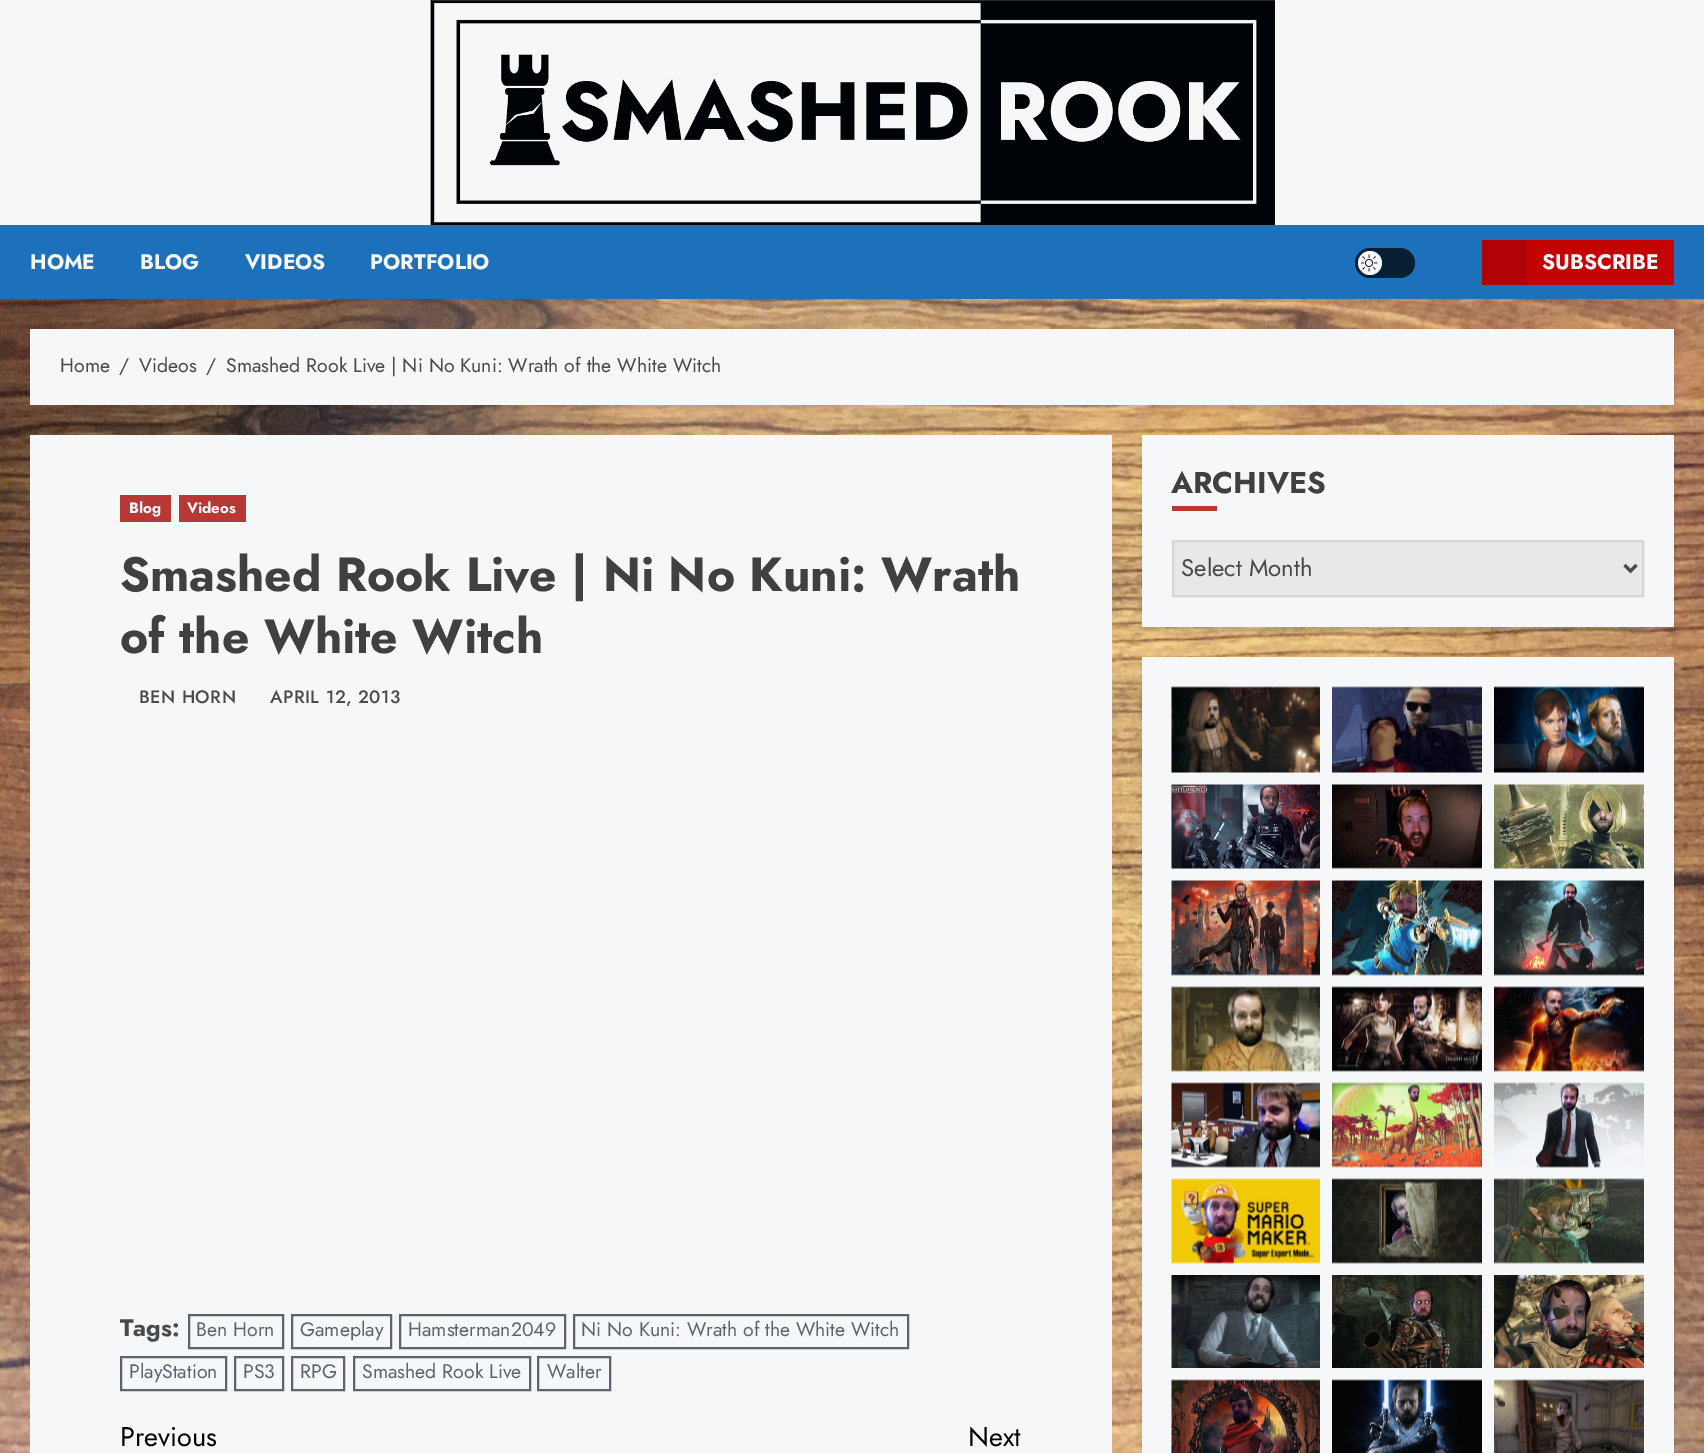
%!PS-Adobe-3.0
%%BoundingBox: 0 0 1704 1453
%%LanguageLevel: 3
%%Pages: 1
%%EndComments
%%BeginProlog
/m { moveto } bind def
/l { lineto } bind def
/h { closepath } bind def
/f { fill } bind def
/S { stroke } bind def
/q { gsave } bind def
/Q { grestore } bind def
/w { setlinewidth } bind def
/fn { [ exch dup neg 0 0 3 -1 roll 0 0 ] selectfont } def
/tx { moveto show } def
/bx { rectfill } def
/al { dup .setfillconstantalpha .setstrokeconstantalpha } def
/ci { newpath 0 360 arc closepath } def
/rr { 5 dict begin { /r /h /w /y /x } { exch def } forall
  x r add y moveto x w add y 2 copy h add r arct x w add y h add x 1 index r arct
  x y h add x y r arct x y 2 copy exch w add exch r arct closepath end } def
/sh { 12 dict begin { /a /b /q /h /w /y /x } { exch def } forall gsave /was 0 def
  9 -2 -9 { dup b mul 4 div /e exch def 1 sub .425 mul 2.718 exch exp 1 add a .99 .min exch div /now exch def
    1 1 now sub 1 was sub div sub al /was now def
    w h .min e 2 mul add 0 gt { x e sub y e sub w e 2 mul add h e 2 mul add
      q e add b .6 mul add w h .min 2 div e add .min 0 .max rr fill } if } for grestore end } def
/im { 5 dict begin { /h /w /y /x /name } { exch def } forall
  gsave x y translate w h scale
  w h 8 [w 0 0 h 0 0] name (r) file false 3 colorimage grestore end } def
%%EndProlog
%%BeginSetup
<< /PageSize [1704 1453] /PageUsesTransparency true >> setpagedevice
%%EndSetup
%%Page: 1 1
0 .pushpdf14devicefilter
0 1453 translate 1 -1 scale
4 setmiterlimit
1 setgray
0 0 1704 1453 bx
0.961 0.969 0.976 setrgbcolor
0 0 1704 225 bx
(image0.raw) 430 0 845 225 im
0.114 0.443 0.733 setrgbcolor
0 225 1704 74 bx
/Jost-Bold 21 fn
0.961 0.969 0.976 setrgbcolor
(HOME) 30 269 tx
(BLOG) 140 269 tx
(VIDEOS) 245 269 tx
(PORTFOLIO) 370 269 tx
0.031 0.118 0.2 setrgbcolor
1355 248 60 30 15 rr f
0.961 0.969 0.976 setrgbcolor
1370 263 12 ci f
(image1.raw) 1361 254 17 18 im
0.769 0.012 0.02 setrgbcolor
1527 240 147 45 bx
0.694 0.012 0.02 setrgbcolor
1482 240 45 45 bx
0.961 0.969 0.976 setrgbcolor
(SUBSCRIBE) 1542 269 tx
(image26.raw) 0 299 1704 1154 im
0 0.012 0.02 setrgbcolor
30 332 1644 76 0 1.5 0.08 sh
0.961 0.969 0.976 setrgbcolor
30 329 1644 76 bx
/Jost-Regular 19.5 fn
0.278 0.29 0.298 setrgbcolor
(Home) 60 372 tx
(/) 119 372 tx
(Videos) 139 372 tx
(/) 206 372 tx
(Smashed Rook Live | Ni No Kuni: Wrath of the White Witch) 226 372 tx
0.961 0.969 0.976 setrgbcolor
30 435 1082 1018 bx
0.722 0.22 0.208 setrgbcolor
120 495 51 27 bx
/Jost-Bold 15 fn
0.961 0.969 0.976 setrgbcolor
(Blog) 129 513 tx
0.722 0.22 0.208 setrgbcolor
179 495 67 27 bx
0.961 0.969 0.976 setrgbcolor
(Videos) 187 513 tx
/Jost-Bold 48 fn
0.243 0.251 0.259 setrgbcolor
(Smashed Rook Live | Ni No Kuni: Wrath) 120 591 tx
(of the White Witch) 120 653 tx
/Jost-Medium 18 fn
0.278 0.29 0.298 setrgbcolor
139 703 m 0.5 0 (BEN HORN) ashow
270 703 m 0.5 0 (APRIL 12, 2013) ashow
/Jost-Bold 24 fn
(Tags:) 120 1336 tx
0.365 0.392 0.42 setrgbcolor
2 w
189 1315 94 33 rectstroke
/Jost-Regular 19.5 fn
(Ben Horn) 196 1336 tx
292 1315 99 33 rectstroke
(Gameplay) 300 1336 tx
400 1315 165 33 rectstroke
(Hamsterman2049) 408 1336 tx
574 1315 334 33 rectstroke
(Ni No Kuni: Wrath of the White Witch) 581 1336 tx
121 1357 105 33 rectstroke
(PlayStation) 129 1378 tx
235 1357 48 33 rectstroke
(PS3) 243 1378 tx
292 1357 52 33 rectstroke
(RPG) 300 1378 tx
354 1357 176 33 rectstroke
(Smashed Rook Live) 362 1378 tx
538 1357 72 33 rectstroke
(Walter) 547 1378 tx
/Jost-Regular 27 fn
0 0.012 0.02 setrgbcolor
(Previous) 120 1446 tx
(Next) 968 1446 tx
1142 438 532 192 0 1.5 0.08 sh
0.961 0.969 0.976 setrgbcolor
1142 435 532 192 bx
/Jost-Bold 30 fn
0.243 0.251 0.259 setrgbcolor
(ARCHIVES) 1171 493 tx
0.722 0.22 0.208 setrgbcolor
1172 506 45 5 bx
0.902 0.91 0.918 setrgbcolor
1173 541 m 1643 541 l 1643 596 l 1173 596 l h q f Q
0.827 0.839 0.847 setrgbcolor
S
0.278 0.29 0.298 setrgbcolor
3 w
1624.5 565 m 1630.5 571 l 1636.5 565 l S
/Jost-Regular 24 fn
(Select Month) 1181 576 tx
0 0.012 0.02 setrgbcolor
1142 660 532 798 0 1.5 0.08 sh
0.961 0.969 0.976 setrgbcolor
1142 657 532 796 bx
(image2.raw) 1171 686 149 87 im
(image3.raw) 1332 686 150 87 im
(image4.raw) 1494 686 150 87 im
(image5.raw) 1171 784 149 85 im
(image6.raw) 1332 784 150 85 im
(image7.raw) 1494 784 150 85 im
(image8.raw) 1171 880 149 96 im
(image9.raw) 1332 880 150 96 im
(image10.raw) 1494 880 150 96 im
(image11.raw) 1171 986 149 86 im
(image12.raw) 1332 986 150 86 im
(image13.raw) 1494 986 150 86 im
(image14.raw) 1171 1082 149 86 im
(image15.raw) 1332 1082 150 86 im
(image16.raw) 1494 1082 150 86 im
(image17.raw) 1171 1178 149 86 im
(image18.raw) 1332 1178 150 86 im
(image19.raw) 1494 1178 150 86 im
(image20.raw) 1171 1275 149 93 im
(image21.raw) 1332 1275 150 93 im
(image22.raw) 1494 1275 150 93 im
(image23.raw) 1171 1379 149 74 im
(image24.raw) 1332 1379 150 74 im
(image25.raw) 1494 1379 150 74 im
.poppdf14devicefilter showpage
%%EOF
